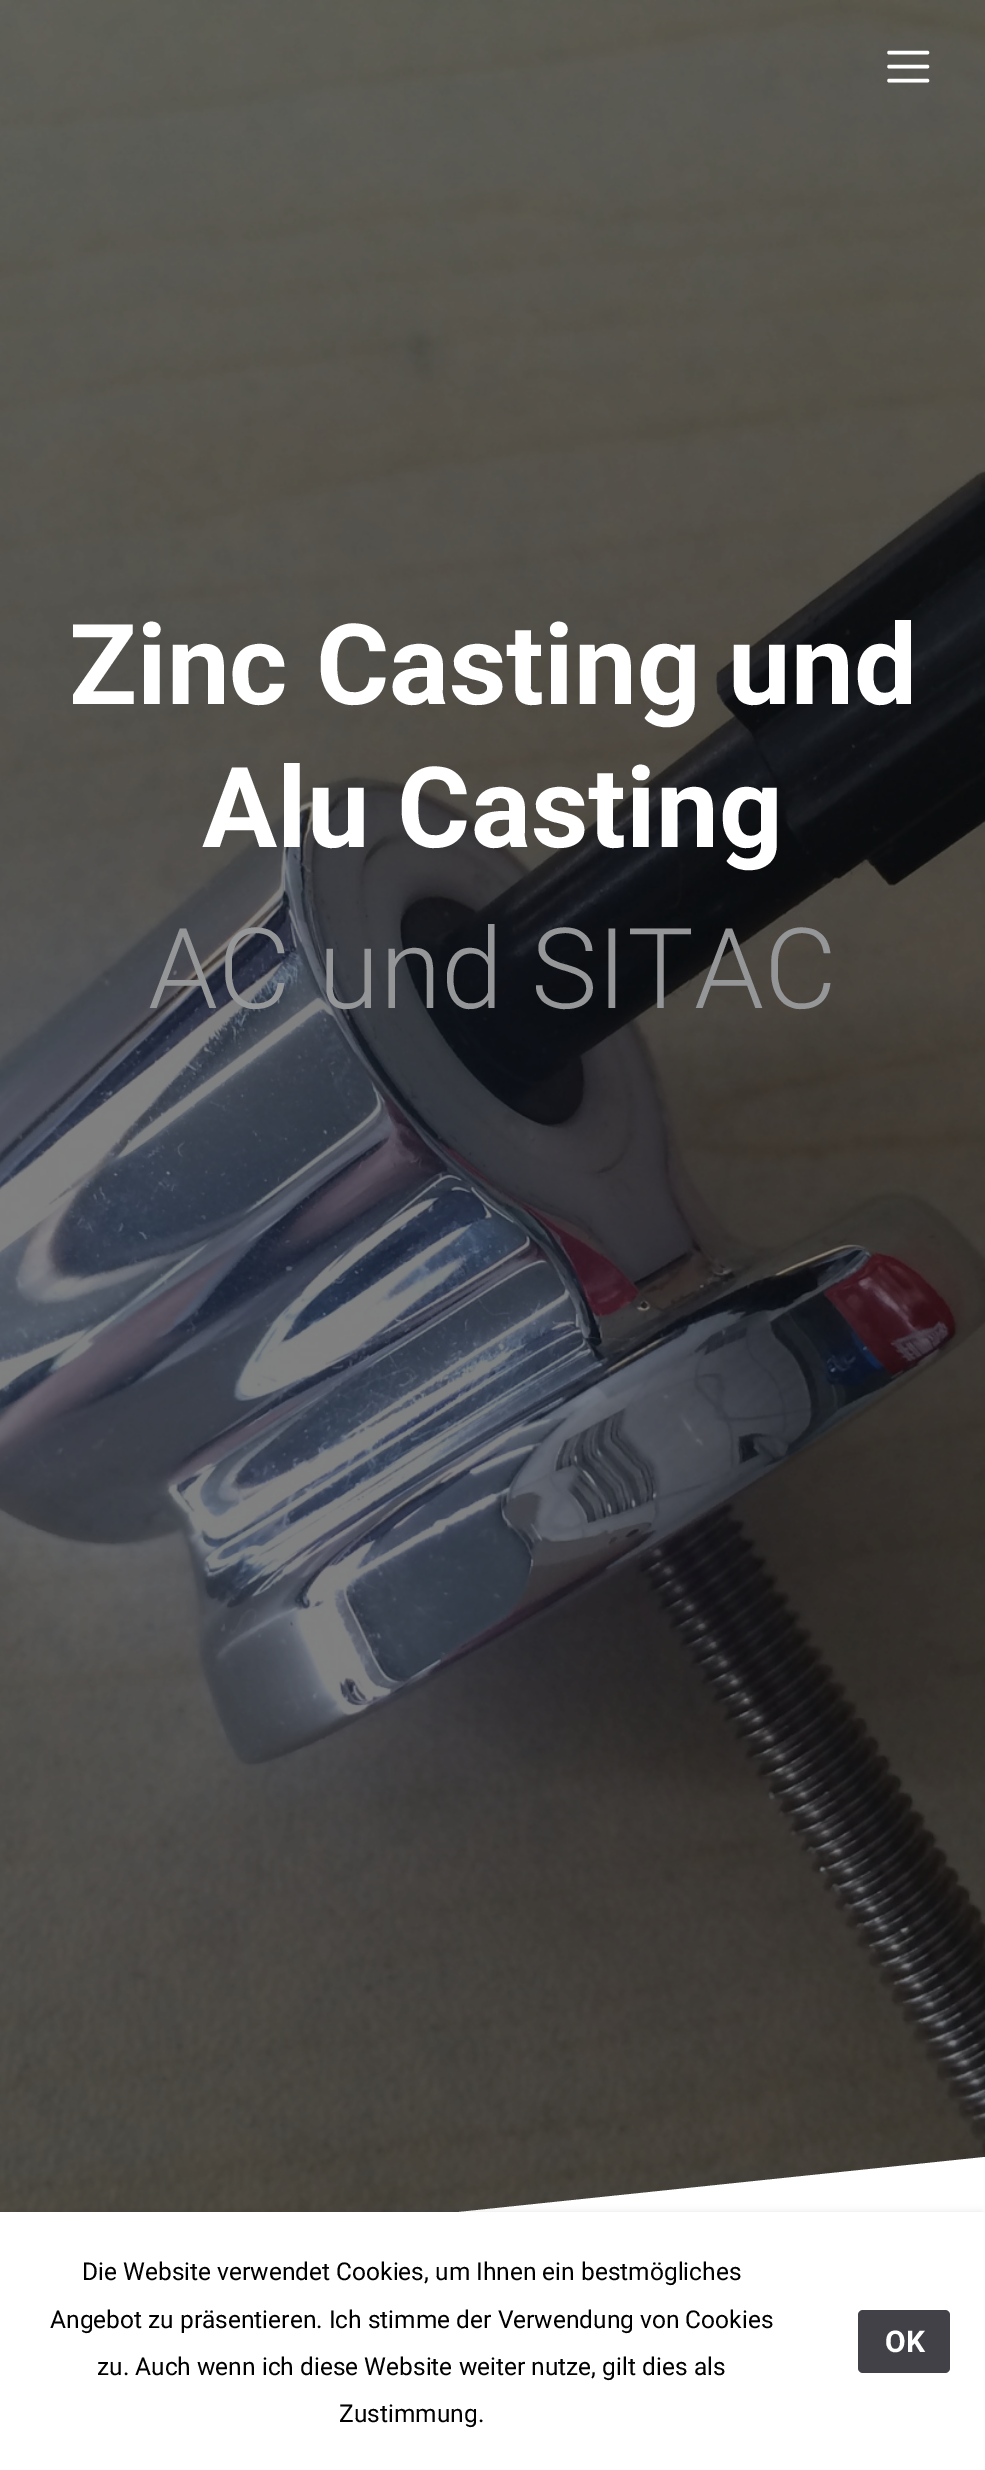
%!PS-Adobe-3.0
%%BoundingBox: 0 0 985 2470
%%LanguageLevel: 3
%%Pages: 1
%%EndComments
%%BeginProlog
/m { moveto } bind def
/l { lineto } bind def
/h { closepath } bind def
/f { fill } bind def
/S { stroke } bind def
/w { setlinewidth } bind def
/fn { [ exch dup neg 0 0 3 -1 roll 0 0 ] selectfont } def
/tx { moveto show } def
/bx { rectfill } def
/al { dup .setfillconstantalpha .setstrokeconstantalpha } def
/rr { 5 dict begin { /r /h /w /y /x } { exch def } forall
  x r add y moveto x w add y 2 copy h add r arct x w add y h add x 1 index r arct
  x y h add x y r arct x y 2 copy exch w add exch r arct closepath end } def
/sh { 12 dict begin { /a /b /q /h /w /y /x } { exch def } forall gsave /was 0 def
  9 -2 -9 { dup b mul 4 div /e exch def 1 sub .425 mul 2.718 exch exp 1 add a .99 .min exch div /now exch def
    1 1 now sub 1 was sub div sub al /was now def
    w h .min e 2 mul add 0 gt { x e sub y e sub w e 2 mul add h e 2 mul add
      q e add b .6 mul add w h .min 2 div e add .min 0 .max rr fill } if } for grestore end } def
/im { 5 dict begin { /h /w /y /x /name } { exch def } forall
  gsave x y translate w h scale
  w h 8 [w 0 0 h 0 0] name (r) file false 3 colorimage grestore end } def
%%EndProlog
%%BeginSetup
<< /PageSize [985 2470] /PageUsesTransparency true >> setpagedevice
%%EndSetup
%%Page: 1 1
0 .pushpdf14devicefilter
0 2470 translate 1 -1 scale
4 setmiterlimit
1 setgray
0 0 985 2470 bx
(image0.raw) 0 0 985 2212 im
3.5 w
1 setlinecap
889 52.5 m 927.5 52.5 l 889 66.5 m 927.5 66.5 l 889 80.5 m 927.5 80.5 l S
/Roboto-Bold 112 fn
(Zinc Casting und) 69 704 tx
(Alu Casting) 202 847 tx
/Roboto-Light 112 fn
0.584 0.588 0.596 setrgbcolor
(AC und SITAC) 148 1008 tx
1 setgray
0 2260 m 985 2157 l 985 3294 l 0 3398 l h f
0 setgray
-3 2212 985 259 0 3.5 0.1 sh
1 setgray
0 2212 985 258 bx
/Roboto-Regular 24.5 fn
0 setgray
(Die Website verwendet Cookies, um Ihnen ein bestmögliches) 82 2280 tx
(Angebot zu präsentieren. Ich stimme der Verwendung von Cookies) 50 2328 tx
(zu. Auch wenn ich diese Website weiter nutze, gilt dies als) 97 2375 tx
(Zustimmung.) 339 2422 tx
0.259 0.255 0.278 setrgbcolor
858 2310 92 63 5 rr f
/Roboto-Bold 30 fn
1 setgray
(OK) 885 2352 tx
.poppdf14devicefilter showpage
%%EOF
